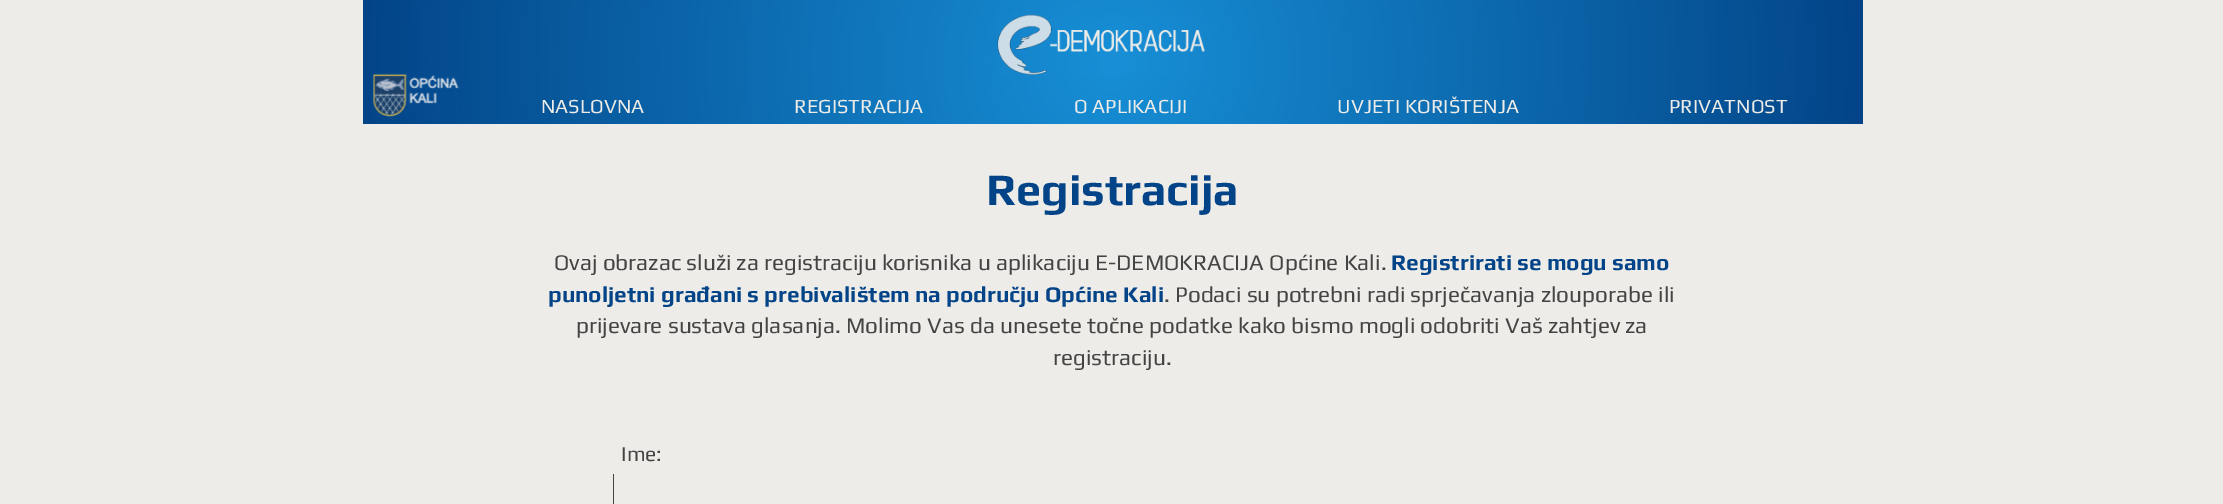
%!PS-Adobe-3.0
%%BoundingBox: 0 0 2223 504
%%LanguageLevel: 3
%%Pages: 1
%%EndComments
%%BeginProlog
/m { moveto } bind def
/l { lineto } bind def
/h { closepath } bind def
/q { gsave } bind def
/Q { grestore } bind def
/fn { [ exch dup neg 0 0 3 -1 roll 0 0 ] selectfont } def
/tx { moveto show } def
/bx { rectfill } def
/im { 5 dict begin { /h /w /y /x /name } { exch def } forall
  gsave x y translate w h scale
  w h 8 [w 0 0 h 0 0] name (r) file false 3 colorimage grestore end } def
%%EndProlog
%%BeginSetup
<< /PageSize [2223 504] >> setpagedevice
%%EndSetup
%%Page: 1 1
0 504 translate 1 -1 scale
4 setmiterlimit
0.929 0.925 0.91 setrgbcolor
0 0 2223 504 bx
q 363 0 m 1863 0 l 1863 124 l 363 124 l h clip newpath 1113 62 translate 753 753 scale
<< /ShadingType 3 /ColorSpace /DeviceRGB /Coords [0 0 0 0 0 1] /Extend [true true] /Function << /FunctionType 2 /Domain [0 1] /C0 [0.09 0.561 0.839] /C1 [0.012 0.267 0.533] /N 1 >> >> shfill Q
(image0.raw) 373 73 86 44 im
(image1.raw) 997 14 208 62 im
/Play-Regular 20 fn
(NASLOVNA) 541 113 tx
(REGISTRACIJA) 794 113 tx
(O APLIKACIJI) 1074 113 tx
(UVJETI KORIŠTENJA) 1337 113 tx
(PRIVATNOST) 1669 113 tx
/Play-Bold 45 fn
0.012 0.267 0.533 setrgbcolor
(Registracija) 986 205 tx
/Play-Regular 22.5 fn
0.267 setgray
(Ovaj obrazac služi za registraciju korisnika u aplikaciju E-DEMOKRACIJA Općine Kali.) 554 270 tx
/Play-Bold 22.5 fn
0.012 0.267 0.533 setrgbcolor
(Registrirati se mogu samo) 1391 270 tx
(punoljetni građani s prebivalištem na području Općine Kali) 548 302 tx
/Play-Regular 22.5 fn
0.267 setgray
(. Podaci su potrebni radi sprječavanja zlouporabe ili) 1164 302 tx
(prijevare sustava glasanja. Molimo Vas da unesete točne podatke kako bismo mogli odobriti Vaš zahtjev za) 576 333 tx
(registraciju.) 1053 365 tx
/Play-Regular 21 fn
(Ime:) 621 461 tx
613 474 1 30 bx
showpage
%%EOF
